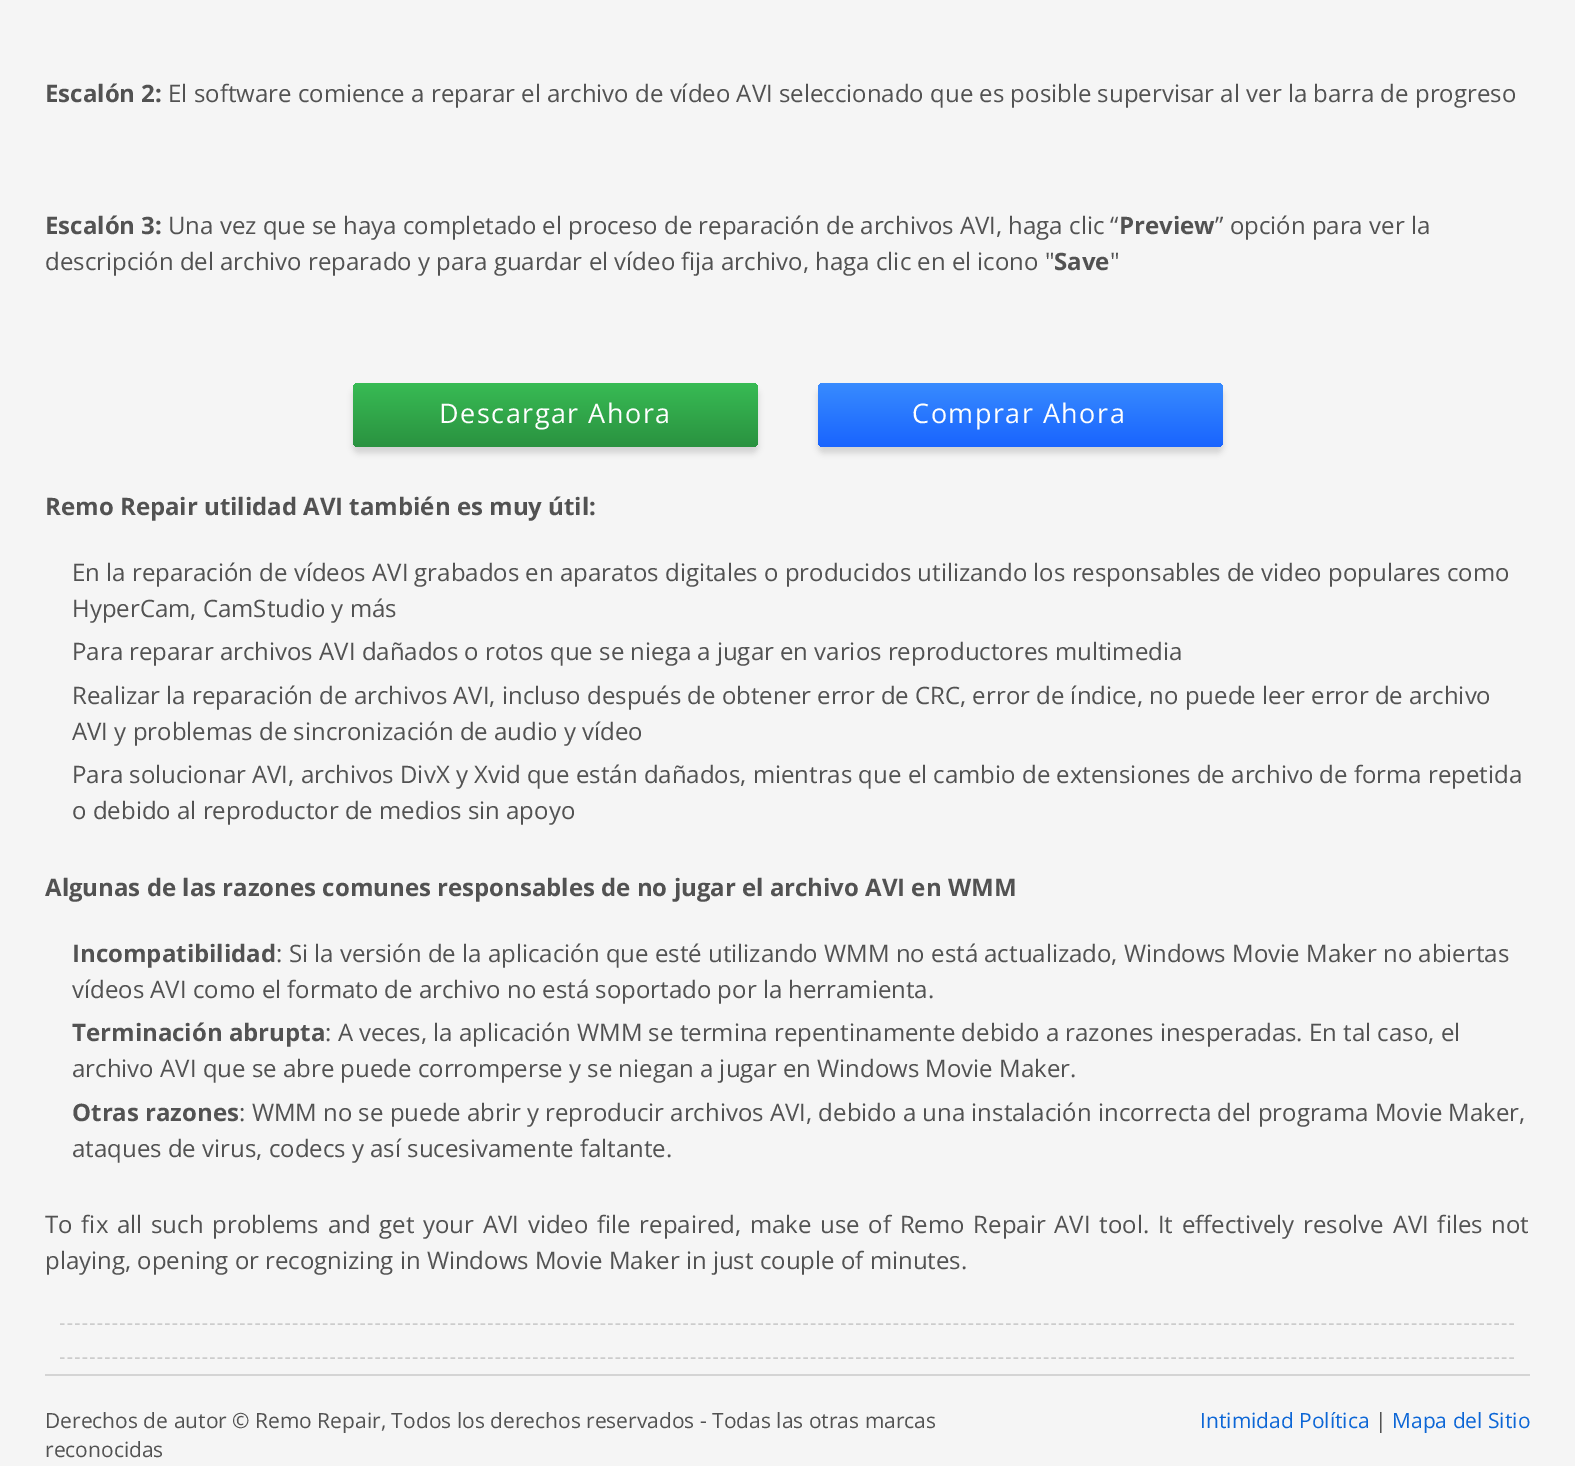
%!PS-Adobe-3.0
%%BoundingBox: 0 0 1575 1466
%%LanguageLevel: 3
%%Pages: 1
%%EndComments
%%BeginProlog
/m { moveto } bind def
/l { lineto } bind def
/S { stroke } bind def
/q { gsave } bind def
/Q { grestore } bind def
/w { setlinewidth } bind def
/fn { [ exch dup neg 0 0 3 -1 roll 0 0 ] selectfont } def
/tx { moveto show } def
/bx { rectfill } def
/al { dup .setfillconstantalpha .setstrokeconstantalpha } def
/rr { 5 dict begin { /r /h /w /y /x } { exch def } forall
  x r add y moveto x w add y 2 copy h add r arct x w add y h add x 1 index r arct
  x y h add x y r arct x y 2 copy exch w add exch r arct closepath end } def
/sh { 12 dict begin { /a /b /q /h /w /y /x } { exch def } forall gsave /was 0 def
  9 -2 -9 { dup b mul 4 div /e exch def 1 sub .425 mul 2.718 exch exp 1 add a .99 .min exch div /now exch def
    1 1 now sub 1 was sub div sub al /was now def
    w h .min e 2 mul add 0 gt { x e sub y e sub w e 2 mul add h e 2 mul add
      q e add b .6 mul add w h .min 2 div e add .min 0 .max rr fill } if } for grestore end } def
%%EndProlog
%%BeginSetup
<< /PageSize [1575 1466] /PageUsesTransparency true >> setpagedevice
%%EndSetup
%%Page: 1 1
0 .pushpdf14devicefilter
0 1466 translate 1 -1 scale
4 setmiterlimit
0.961 setgray
0 0 1575 1466 bx
/OpenSans-Bold 24 fn
0.322 setgray
(Escalón 2:) 45 102 tx
/OpenSans-Regular 24 fn
(El software comience a reparar el archivo de vídeo AVI seleccionado que es posible supervisar al ver la barra de progreso) 168 102 tx
/OpenSans-Bold 24 fn
(Escalón 3:) 45 234 tx
/OpenSans-Regular 24 fn
(Una vez que se haya completado el proceso de reparación de archivos AVI, haga clic “) 168 234 tx
/OpenSans-Bold 24 fn
(Preview) 1119 234 tx
/OpenSans-Regular 24 fn
(” opción para ver la) 1215 234 tx
(descripción del archivo reparado y para guardar el vídeo fija archivo, haga clic en el icono ") 45 270 tx
/OpenSans-Bold 24 fn
(Save) 1054 270 tx
/OpenSans-Regular 24 fn
(") 1110 270 tx
0.098 setgray
353 389 405 64 6 3 0.15 sh
q 353 383 405 64 6 rr clip newpath
<< /ShadingType 2 /ColorSpace /DeviceRGB /Coords [555 447 555 383] /Extend [true true] /Function << /FunctionType 2 /Domain [0 1] /C0 [0.165 0.573 0.251] /C1 [0.22 0.733 0.329] /N 1 >> >> shfill Q
/OpenSans-Regular 27 fn
0.996 setgray
439 423 m 1.5 0 (Descargar Ahora) ashow
0.098 setgray
818 389 405 64 6 3 0.15 sh
q 818 383 405 64 6 rr clip newpath
<< /ShadingType 2 /ColorSpace /DeviceRGB /Coords [1020 447 1020 383] /Extend [true true] /Function << /FunctionType 2 /Domain [0 1] /C0 [0.098 0.392 0.996] /C1 [0.22 0.545 0.996] /N 1 >> >> shfill Q
0.996 setgray
912 423 m 1.5 0 (Comprar Ahora) ashow
/OpenSans-Bold 24 fn
0.322 setgray
(Remo Repair utilidad AVI también es muy útil:) 45 515 tx
/OpenSans-Regular 24 fn
(En la reparación de vídeos AVI grabados en aparatos digitales o producidos utilizando los responsables de video populares como) 72 581 tx
(HyperCam, CamStudio y más) 72 617 tx
(Para reparar archivos AVI dañados o rotos que se niega a jugar en varios reproductores multimedia) 72 660 tx
(Realizar la reparación de archivos AVI, incluso después de obtener error de CRC, error de índice, no puede leer error de archivo) 72 704 tx
(AVI y problemas de sincronización de audio y vídeo) 72 740 tx
(Para solucionar AVI, archivos DivX y Xvid que están dañados, mientras que el cambio de extensiones de archivo de forma repetida) 72 783 tx
(o debido al reproductor de medios sin apoyo) 72 819 tx
/OpenSans-Bold 24 fn
(Algunas de las razones comunes responsables de no jugar el archivo AVI en WMM) 45 896 tx
(Incompatibilidad) 72 962 tx
/OpenSans-Regular 24 fn
(: Si la versión de la aplicación que esté utilizando WMM no está actualizado, Windows Movie Maker no abiertas) 276 962 tx
(vídeos AVI como el formato de archivo no está soportado por la herramienta.) 72 998 tx
/OpenSans-Bold 24 fn
(Terminación abrupta) 72 1041 tx
/OpenSans-Regular 24 fn
(: A veces, la aplicación WMM se termina repentinamente debido a razones inesperadas. En tal caso, el) 325 1041 tx
(archivo AVI que se abre puede corromperse y se niegan a jugar en Windows Movie Maker.) 72 1077 tx
/OpenSans-Bold 24 fn
(Otras razones) 72 1121 tx
/OpenSans-Regular 24 fn
(: WMM no se puede abrir y reproducir archivos AVI, debido a una instalación incorrecta del programa Movie Maker,) 239 1121 tx
(ataques de virus, codecs y así sucesivamente faltante.) 72 1157 tx
45 1233 m 2.5 0 32 (To fix all such problems and get your AVI video file repaired, make use of Remo Repair AVI tool. It effectively resolve AVI files not) widthshow
(playing, opening or recognizing in Windows Movie Maker in just couple of minutes.) 45 1269 tx
0.8 setgray
1.5 w
[4.5 3.01] 0 setdash
60 1324 m 1515 1324 l S
60 1358 m 1515 1358 l S
0.831 setgray
45 1374 1485 2 bx
/OpenSans-Regular 21 fn
0.322 setgray
(Derechos de autor © Remo Repair, Todos los derechos reservados - Todas las otras marcas) 45 1428 tx
(reconocidas) 45 1457 tx
0.047 0.4 0.839 setrgbcolor
(Intimidad Política) 1200 1428 tx
0.322 setgray
(|) 1375 1428 tx
0.047 0.4 0.839 setrgbcolor
(Mapa del Sitio) 1392 1428 tx
.poppdf14devicefilter showpage
%%EOF
